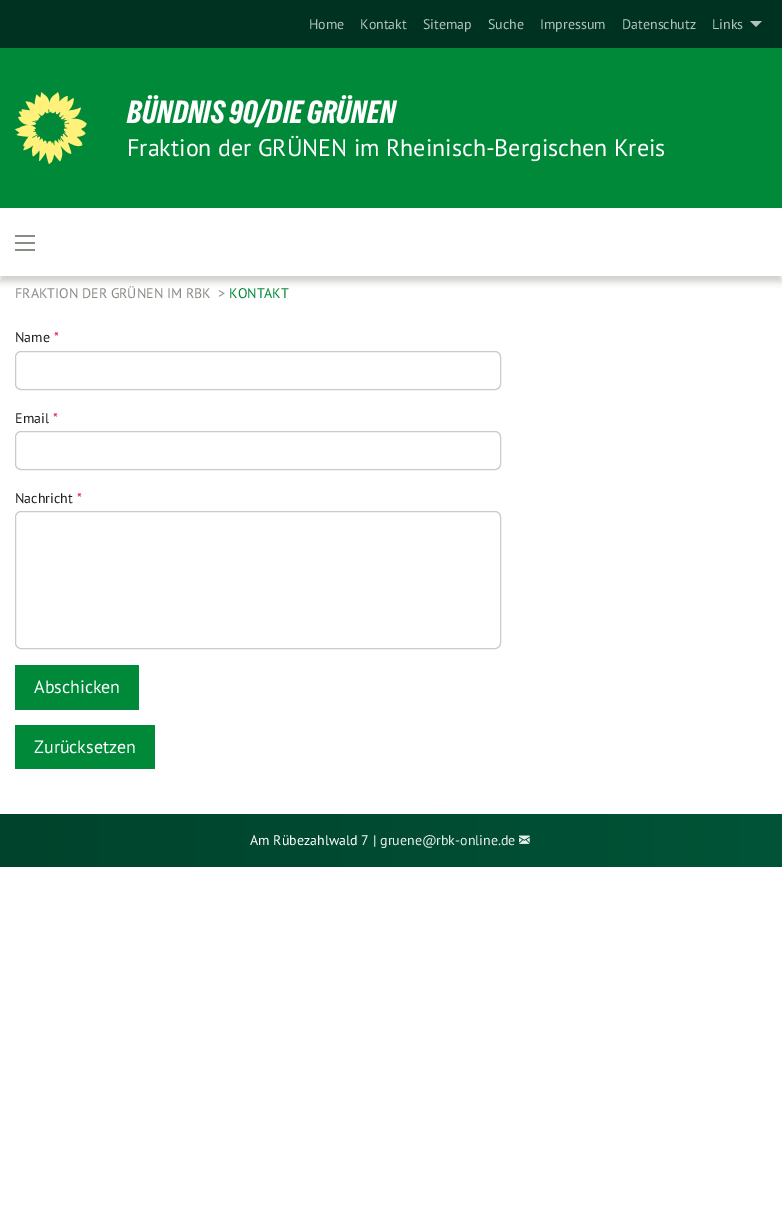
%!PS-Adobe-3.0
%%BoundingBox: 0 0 782 1220
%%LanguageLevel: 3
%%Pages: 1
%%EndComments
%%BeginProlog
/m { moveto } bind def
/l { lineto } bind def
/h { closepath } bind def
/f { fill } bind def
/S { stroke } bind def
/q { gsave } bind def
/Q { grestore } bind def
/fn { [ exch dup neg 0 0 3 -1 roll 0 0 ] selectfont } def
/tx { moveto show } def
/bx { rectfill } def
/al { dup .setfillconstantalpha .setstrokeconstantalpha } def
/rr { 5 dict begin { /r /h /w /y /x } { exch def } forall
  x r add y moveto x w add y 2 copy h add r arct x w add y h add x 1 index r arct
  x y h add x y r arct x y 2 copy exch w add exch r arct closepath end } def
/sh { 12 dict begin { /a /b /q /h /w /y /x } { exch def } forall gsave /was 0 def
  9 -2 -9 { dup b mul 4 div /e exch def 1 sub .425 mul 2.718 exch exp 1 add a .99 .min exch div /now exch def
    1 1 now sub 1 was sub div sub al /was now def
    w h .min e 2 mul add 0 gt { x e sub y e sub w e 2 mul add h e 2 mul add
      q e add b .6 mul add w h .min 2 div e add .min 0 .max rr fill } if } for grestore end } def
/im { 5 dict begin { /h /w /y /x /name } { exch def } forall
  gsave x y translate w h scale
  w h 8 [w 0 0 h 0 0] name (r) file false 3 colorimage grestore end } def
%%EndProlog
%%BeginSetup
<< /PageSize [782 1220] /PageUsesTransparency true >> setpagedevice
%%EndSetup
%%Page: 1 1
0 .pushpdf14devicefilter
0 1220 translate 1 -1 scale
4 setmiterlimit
1 setgray
0 0 782 1220 bx
0 0.196 0.129 setrgbcolor
0 0 782 48 bx
/PTSans-Regular 14 fn
0.702 0.761 0.737 setrgbcolor
(Home) 309 29 tx
(Kontakt) 360 29 tx
(Sitemap) 423 29 tx
(Suche) 488 29 tx
(Impressum) 540 29 tx
(Datenschutz) 622 29 tx
(Links) 712 29 tx
750 21 m 762 21 l 756 27 l h f
0 0.537 0.224 setrgbcolor
0 48 782 160 bx
(image0.raw) 15 92 72 72 im
/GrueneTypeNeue-Regular 30 fn
1 setgray
(BÜNDNIS 90/DIE GRÜNEN) 127 123 tx
/PTSans-Regular 24 fn
(Fraktion der GRÜNEN im Rheinisch-Bergischen Kreis) 127 156 tx
0.125 0.114 0.106 setrgbcolor
0 214 782 68 0 3 0.2 sh
1 setgray
0 209 782 67 bx
0.529 0.549 0.522 setrgbcolor
15 249 20 2 bx
15 242 20 2 bx
15 235 20 2 bx
/PTSans-Regular 14 fn
(FRAKTION DER GRÜNEN IM RBK) 15 298 tx
(>) 218 298 tx
0 0.537 0.224 setrgbcolor
(KONTAKT) 229 298 tx
0.125 0.114 0.106 setrgbcolor
(Name) 15 342 tx
0.863 0.078 0.235 setrgbcolor
(*) 54 342 tx
0.792 setgray
15.5 351.5 485 38 5.5 rr S
0.125 0.114 0.106 setrgbcolor
(Email) 15 423 tx
0.863 0.078 0.235 setrgbcolor
(*) 53 423 tx
0.792 setgray
15.5 431.5 485 38 5.5 rr S
0.125 0.114 0.106 setrgbcolor
(Nachricht) 15 503 tx
0.863 0.078 0.235 setrgbcolor
(*) 77 503 tx
0.792 setgray
15.5 511.5 485 137 5.5 rr S
0 0.537 0.224 setrgbcolor
15 665 124 45 bx
/PTSans-Regular 18 fn
1 setgray
(Abschicken) 34 693 tx
0 0.537 0.224 setrgbcolor
15 725 140 44 bx
1 setgray
(Zurücksetzen) 34 753 tx
q 0 814 m 782 814 l 782 867 l 0 867 l h clip newpath
<< /ShadingType 2 /ColorSpace /DeviceRGB /Coords [0 841 782 841] /Extend [true true] /Function << /FunctionType 2 /Domain [0 1] /C0 [0 0.263 0.173] /C1 [0 0.329 0.216] /N 1 >> >> shfill Q
/PTSans-Regular 14 fn
(Am Rübezahlwald 7 |) 250 845 tx
0.902 0.929 0.918 setrgbcolor
(gruene@) 380 845 tx
(rbk-online.de) 436 845 tx
(image1.raw) 519 835 11 9 im
.poppdf14devicefilter showpage
%%EOF
